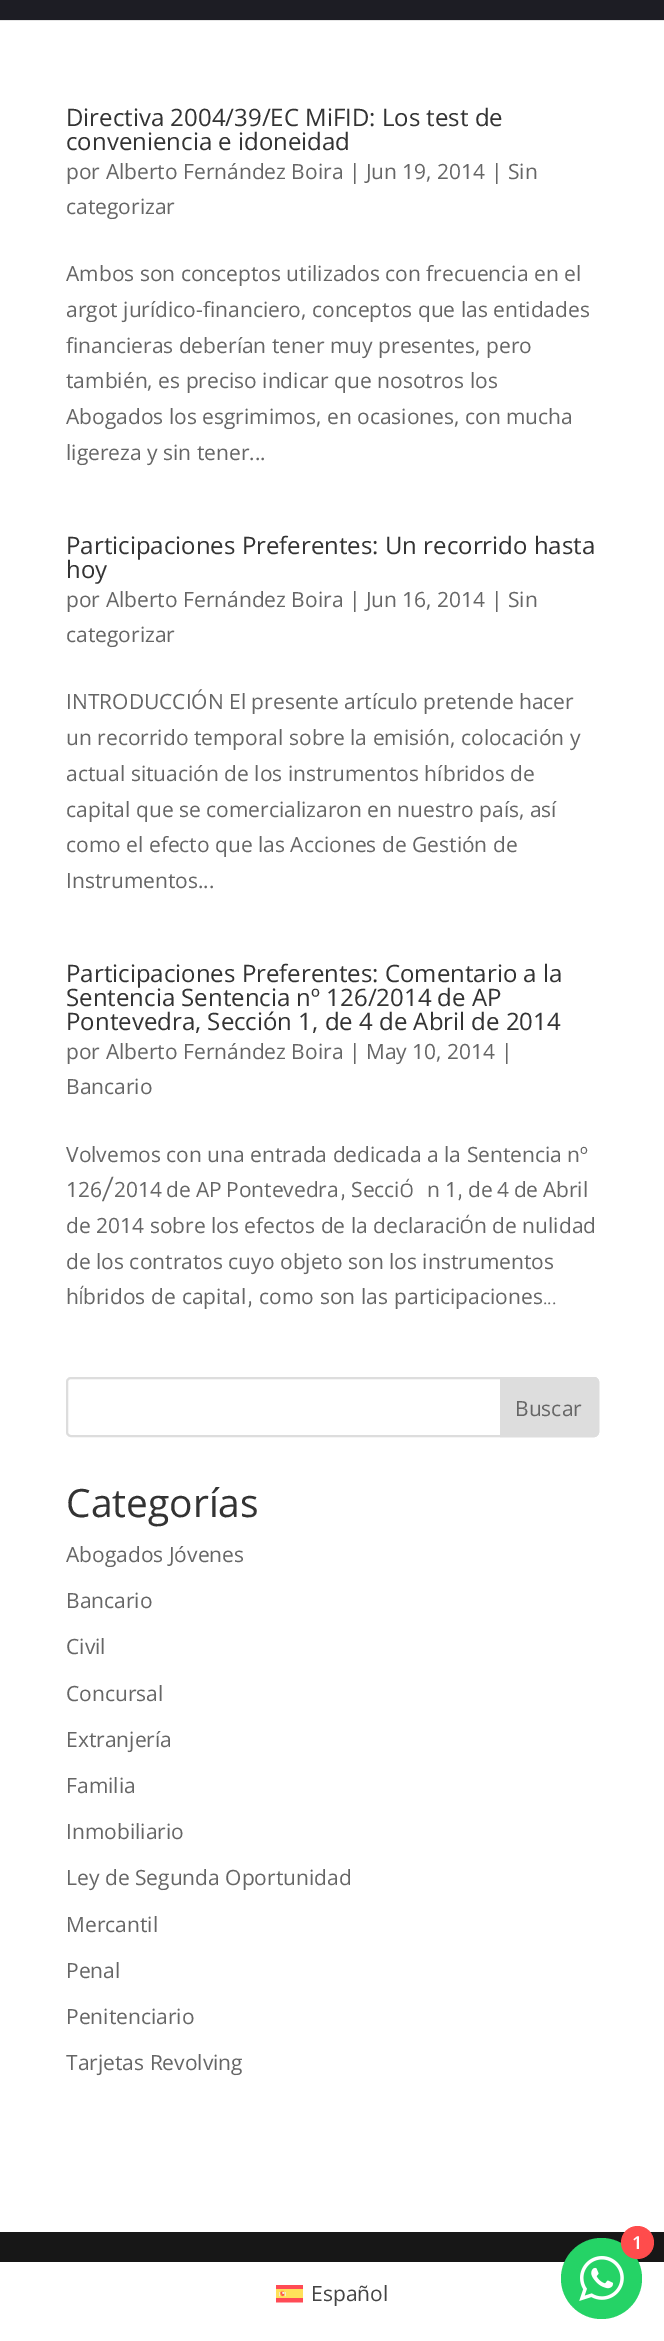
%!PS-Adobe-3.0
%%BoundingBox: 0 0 664 2341
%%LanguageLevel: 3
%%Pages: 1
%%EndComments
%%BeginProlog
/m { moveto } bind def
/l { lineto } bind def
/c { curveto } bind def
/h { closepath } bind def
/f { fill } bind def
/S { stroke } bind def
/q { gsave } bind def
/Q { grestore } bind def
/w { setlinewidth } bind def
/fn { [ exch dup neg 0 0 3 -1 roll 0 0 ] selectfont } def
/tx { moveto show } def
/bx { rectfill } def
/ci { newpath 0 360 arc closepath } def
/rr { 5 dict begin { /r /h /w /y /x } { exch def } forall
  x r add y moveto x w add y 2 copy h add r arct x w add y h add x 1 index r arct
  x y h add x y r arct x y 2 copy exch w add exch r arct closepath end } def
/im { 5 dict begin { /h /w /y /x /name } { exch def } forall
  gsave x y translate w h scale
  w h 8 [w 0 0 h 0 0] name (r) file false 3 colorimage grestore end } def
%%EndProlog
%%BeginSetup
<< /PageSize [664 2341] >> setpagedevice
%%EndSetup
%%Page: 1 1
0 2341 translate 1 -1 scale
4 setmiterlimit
1 setgray
0 0 664 2341 bx
0.902 setgray
0 20 m 0 21 l 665 21 l 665 -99 l 664 -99 l 664 20 l h f
0.114 0.114 0.141 setrgbcolor
0 0 664 20 bx
/OpenSans-Regular 24 fn
0.2 setgray
(Directiva 2004/39/EC MiFID: Los test de) 66 126 tx
(conveniencia e idoneidad) 66 150 tx
/OpenSans-Regular 21 fn
0.4 setgray
(por Alberto Fernández Boira | Jun 19, 2014 | Sin) 66 179 tx
(categorizar) 66 214 tx
(Ambos son conceptos utilizados con frecuencia en el) 66 281 tx
(argot jurídico-financiero, conceptos que las entidades) 66 317 tx
(financieras deberían tener muy presentes, pero) 66 353 tx
(también, es preciso indicar que nosotros los) 66 388 tx
(Abogados los esgrimimos, en ocasiones, con mucha) 66 424 tx
(ligereza y sin tener...) 66 460 tx
/OpenSans-Regular 24 fn
0.2 setgray
(Participaciones Preferentes: Un recorrido hasta) 66 554 tx
(hoy) 66 578 tx
/OpenSans-Regular 21 fn
0.4 setgray
(por Alberto Fernández Boira | Jun 16, 2014 | Sin) 66 607 tx
(categorizar) 66 642 tx
(INTRODUCCIÓN El presente artículo pretende hacer) 66 709 tx
(un recorrido temporal sobre la emisión, colocación y) 66 745 tx
(actual situación de los instrumentos híbridos de) 66 781 tx
(capital que se comercializaron en nuestro país, así) 66 817 tx
(como el efecto que las Acciones de Gestión de) 66 852 tx
(Instrumentos...) 66 888 tx
/OpenSans-Regular 24 fn
0.2 setgray
(Participaciones Preferentes: Comentario a la) 66 982 tx
(Sentencia Sentencia nº 126/2014 de AP) 66 1006 tx
(Pontevedra, Sección 1, de 4 de Abril de 2014) 66 1030 tx
/OpenSans-Regular 21 fn
0.4 setgray
(por Alberto Fernández Boira | May 10, 2014 |) 66 1059 tx
(Bancario) 66 1094 tx
(Volvemos con una entrada dedicada a la Sentencia nº) 66 1162 tx
(126) 66 1197 tx
/Matangi-Medium 21 fn
(/) 102 1197 tx
/OpenSans-Regular 21 fn
114 1197 m -1 0 32 (2014 de AP Pontevedra) widthshow
/Matangi-Medium 21 fn
(,) 339 1197 tx
/OpenSans-Regular 21 fn
(Secci) 351 1197 tx
/Matangi-Medium 21 fn
(ó) 400 1197 tx
/OpenSans-Regular 21 fn
(n 1) 427 1197 tx
/Matangi-Medium 21 fn
(,) 456 1197 tx
/OpenSans-Regular 21 fn
468 1197 m -1 0 32 (de 4 de Abril) widthshow
(de 2014 sobre los efectos de la declaraci) 66 1233 tx
/Matangi-Medium 21 fn
(ó) 460 1233 tx
/OpenSans-Regular 21 fn
(n de nulidad) 474 1233 tx
(de los contratos cuyo objeto son los instrumentos) 66 1269 tx
(h) 66 1304 tx
/Matangi-Medium 21 fn
(í) 79 1304 tx
/OpenSans-Regular 21 fn
83 1304 m 0.5 0 32 (bridos de capital) widthshow
/Matangi-Medium 21 fn
(,) 246 1304 tx
/OpenSans-Regular 21 fn
259 1304 m 0.5 0 32 (como son las participaciones) widthshow
/Matangi-Medium 21 fn
(...) 543 1304 tx
0.867 setgray
2 w
67 1378 531 58 4 rr S
501 1378 m 594 1378 l 596 1378 598 1380 598 1382 c 598 1432 l 598 1434 596 1436 594 1436 c 501 1436 l h q f Q
S
/OpenSans-Regular 21 fn
0.4 setgray
(Buscar) 515 1416 tx
/OpenSans-Regular 39 fn
0.2 setgray
(Categorías) 66 1517 tx
/OpenSans-Regular 21 fn
0.4 setgray
(Abogados Jóvenes) 66 1562 tx
(Bancario) 66 1608 tx
(Civil) 66 1654 tx
(Concursal) 66 1701 tx
(Extranjería) 66 1747 tx
(Familia) 66 1793 tx
(Inmobiliario) 66 1839 tx
(Ley de Segunda Oportunidad) 66 1885 tx
(Mercantil) 66 1932 tx
(Penal) 66 1978 tx
(Penitenciario) 66 2024 tx
(Tarjetas Revolving) 66 2070 tx
0.09 setgray
0 2232 664 30 bx
0.145 0.827 0.4 setrgbcolor
601.5 2278.5 40.5 ci f
(image0.raw) 579 2256 45 45 im
1 0.298 0.298 setrgbcolor
637.5 2242.5 16.5 ci f
/OpenSans-SemiBold 18 fn
1 setgray
(1) 632 2249 tx
(image1.raw) 276 2285 27 18 im
/OpenSans-Regular 21 fn
0.267 setgray
(Español) 311 2301 tx
showpage
%%EOF
